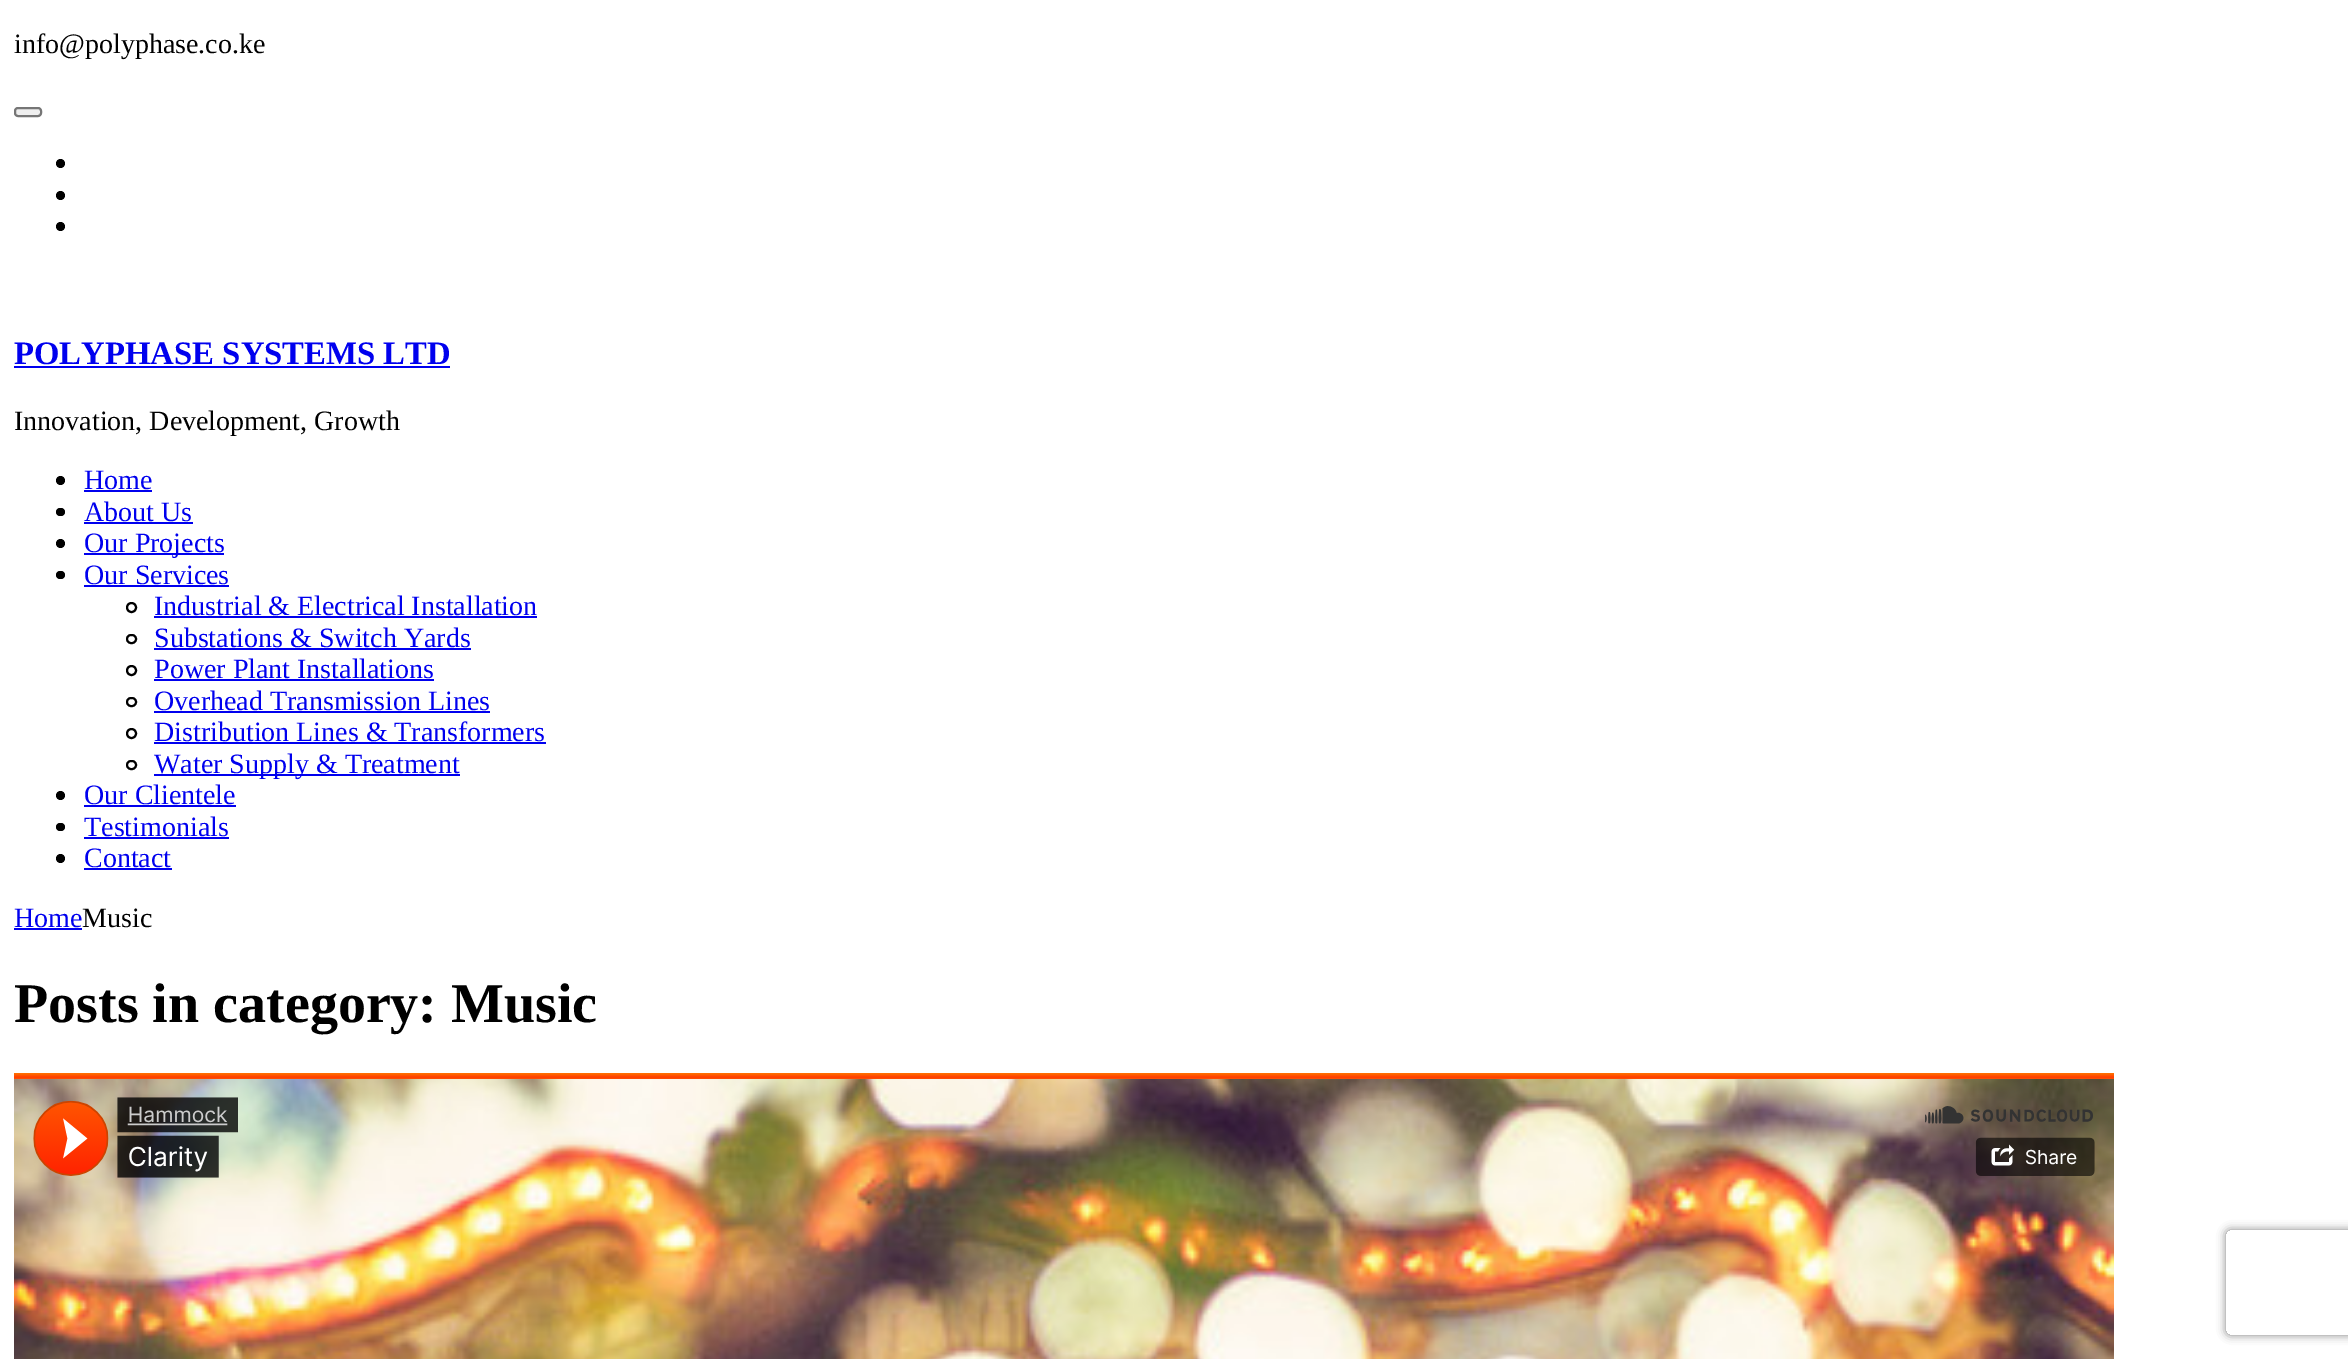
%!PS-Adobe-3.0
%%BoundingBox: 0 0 2348 1359
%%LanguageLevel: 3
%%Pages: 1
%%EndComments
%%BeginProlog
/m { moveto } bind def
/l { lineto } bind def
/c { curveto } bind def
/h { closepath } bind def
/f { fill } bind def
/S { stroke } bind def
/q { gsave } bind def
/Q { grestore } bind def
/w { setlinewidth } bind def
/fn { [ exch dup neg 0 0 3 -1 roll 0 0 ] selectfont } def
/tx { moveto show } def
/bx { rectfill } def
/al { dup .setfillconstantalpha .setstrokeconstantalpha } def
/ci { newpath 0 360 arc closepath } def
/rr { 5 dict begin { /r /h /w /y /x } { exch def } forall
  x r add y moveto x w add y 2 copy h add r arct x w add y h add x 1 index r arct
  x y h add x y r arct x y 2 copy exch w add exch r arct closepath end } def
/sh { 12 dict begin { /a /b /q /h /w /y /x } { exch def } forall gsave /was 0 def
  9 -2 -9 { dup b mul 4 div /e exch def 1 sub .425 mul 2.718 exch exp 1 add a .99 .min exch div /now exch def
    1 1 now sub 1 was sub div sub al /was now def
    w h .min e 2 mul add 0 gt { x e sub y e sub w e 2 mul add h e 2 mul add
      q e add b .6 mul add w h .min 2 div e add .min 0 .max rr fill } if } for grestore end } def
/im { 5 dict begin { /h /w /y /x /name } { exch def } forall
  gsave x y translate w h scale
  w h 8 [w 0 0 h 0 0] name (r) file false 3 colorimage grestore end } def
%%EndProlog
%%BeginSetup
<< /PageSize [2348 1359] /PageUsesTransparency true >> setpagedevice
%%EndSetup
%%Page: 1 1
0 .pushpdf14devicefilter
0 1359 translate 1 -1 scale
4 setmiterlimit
1 setgray
0 0 2348 1359 bx
/LiberationSerif-Regular 28 fn
0 setgray
(info@polyphase.co.ke) 14 53 tx
0.937 setgray
15 108 26 8 3 rr q f Q
0.463 setgray
2 w
S
0 setgray
60.5 163.5 4.5 ci f
60.5 195.5 4.5 ci f
60.5 226.5 4.5 ci f
/LiberationSerif-Bold 32.75 fn
0 0 0.933 setrgbcolor
(POLYPHASE SYSTEMS LTD) 14 364 tx
14 366 436 2 bx
/LiberationSerif-Regular 28 fn
0 setgray
(Innovation, Development, Growth) 14 430 tx
60.5 480.5 4.5 ci f
0 0 0.933 setrgbcolor
(Home) 84 489 tx
84 490 68 2 bx
0 setgray
56 508 9 8 4 rr f
0 0 0.933 setrgbcolor
(About Us) 84 521 tx
84 522 109 2 bx
0 setgray
60.5 543.5 4.5 ci f
0 0 0.933 setrgbcolor
84 553 140 2 bx
(Our Projects) 84 552 tx
0 setgray
56 571 9 8 4 rr f
0 0 0.933 setrgbcolor
(Our Services) 84 584 tx
84 585 145 2 bx
0 setgray
131.5 607.5 4.5 ci S
0 0 0.933 setrgbcolor
(Industrial & Electrical Installation) 154 615 tx
154 616 383 2 bx
0 setgray
127 635 9 8 4 rr S
0 0 0.933 setrgbcolor
(Substations & Switch Yards) 154 647 tx
154 648 317 2 bx
0 setgray
131.5 670.5 4.5 ci S
0 0 0.933 setrgbcolor
(Power Plant Installations) 154 678 tx
154 679 280 2 bx
0 setgray
127 698 9 8 4 rr S
0 0 0.933 setrgbcolor
(Overhead Transmission Lines) 154 710 tx
154 711 336 2 bx
0 setgray
131.5 733.5 4.5 ci S
0 0 0.933 setrgbcolor
(Distribution Lines & Transformers) 154 741 tx
154 742 392 2 bx
0 setgray
127 761 9 8 4 rr S
0 0 0.933 setrgbcolor
154 774 306 2 bx
(Water Supply & Treatment) 154 773 tx
0 setgray
60.5 795.5 4.5 ci f
0 0 0.933 setrgbcolor
(Our Clientele) 84 804 tx
84 805 152 2 bx
0 setgray
56 823 9 8 4 rr f
0 0 0.933 setrgbcolor
(Testimonials) 84 836 tx
84 837 145 2 bx
0 setgray
60.5 858.5 4.5 ci f
0 0 0.933 setrgbcolor
(Contact) 84 867 tx
84 868 88 2 bx
(Home) 14 927 tx
14 928 68 2 bx
0 setgray
(Music) 82 927 tx
/LiberationSerif-Bold 56 fn
(Posts in category: Music) 14 1022 tx
(image0.raw) 14 1073 2100 286 im
q
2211 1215 m 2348 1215 l 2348 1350 l 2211 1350 l h 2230 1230 m 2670 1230 l 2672 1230 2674 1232 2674 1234 c 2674 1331 l 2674 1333 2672 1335 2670 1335 c 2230 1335 l 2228 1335 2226 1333 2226 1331 c 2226 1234 l 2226 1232 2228 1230 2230 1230 c h eoclip newpath
0.502 setgray
2226 1230 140 105 4 4.5 1 sh
Q
.poppdf14devicefilter showpage
%%EOF
